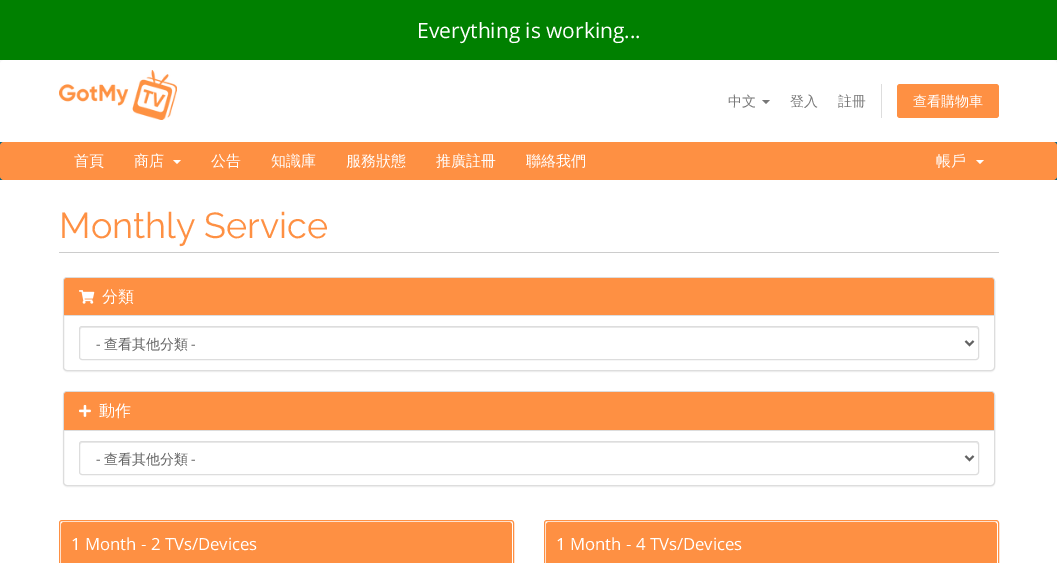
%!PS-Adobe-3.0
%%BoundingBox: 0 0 1057 563
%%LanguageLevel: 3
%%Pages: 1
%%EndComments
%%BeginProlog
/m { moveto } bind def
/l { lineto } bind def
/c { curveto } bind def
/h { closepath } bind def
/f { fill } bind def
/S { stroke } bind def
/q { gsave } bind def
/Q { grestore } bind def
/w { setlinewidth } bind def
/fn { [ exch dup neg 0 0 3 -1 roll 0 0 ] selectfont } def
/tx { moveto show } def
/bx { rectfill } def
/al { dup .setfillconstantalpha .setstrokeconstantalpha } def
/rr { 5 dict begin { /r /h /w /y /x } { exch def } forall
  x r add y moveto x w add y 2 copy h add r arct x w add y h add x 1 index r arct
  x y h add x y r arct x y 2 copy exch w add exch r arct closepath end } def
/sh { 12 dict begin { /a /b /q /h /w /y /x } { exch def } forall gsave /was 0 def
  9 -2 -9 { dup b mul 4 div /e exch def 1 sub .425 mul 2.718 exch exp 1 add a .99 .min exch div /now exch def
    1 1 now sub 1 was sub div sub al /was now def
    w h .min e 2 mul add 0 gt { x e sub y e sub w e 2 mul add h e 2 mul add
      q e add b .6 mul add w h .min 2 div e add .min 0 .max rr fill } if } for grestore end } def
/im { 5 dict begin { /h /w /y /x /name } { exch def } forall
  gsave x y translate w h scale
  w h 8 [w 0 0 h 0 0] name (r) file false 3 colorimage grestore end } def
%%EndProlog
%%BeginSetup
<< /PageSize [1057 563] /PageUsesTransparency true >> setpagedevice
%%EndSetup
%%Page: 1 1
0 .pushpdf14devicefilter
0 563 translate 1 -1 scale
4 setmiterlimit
0.973 setgray
0 0 1057 563 bx
0 0.502 0 setrgbcolor
0 0 1057 60 bx
/OpenSans-Regular 21 fn
1 setgray
(Everything is working...) 417 38 tx
5 60 m 1052 60 l 1055 60 1057 62 1057 65 c 1057 142 l 0 142 l 0 65 l 0 62 2 60 5 60 c h f
(image0.raw) 59 70 118 50 im
/WenQuanYiZenHei-Medium 14 fn
0.467 setgray
(中文) 728 106 tx
762 100 m 770 100 l 766 104 l h f
(登入) 790 106 tx
(註冊) 838 106 tx
0.867 setgray
881 84 1 34 bx
0.996 0.565 0.263 setrgbcolor
897 84 102 34 3 rr f
1 setgray
(查看購物車) 913 106 tx
0 0.4 0.529 setrgbcolor
0 142 1057 38 bx
0.996 0.565 0.263 setrgbcolor
0 142 1057 38 4 rr f
/WenQuanYiZenHei-Medium 15 fn
1 setgray
(首頁) 74 166 tx
(商店) 134 166 tx
173 160 m 181 160 l 177 164 l h f
(公告) 211 166 tx
(知識庫) 271 166 tx
(服務狀態) 346 166 tx
(推廣註冊) 436 166 tx
(聯絡我們) 526 166 tx
(帳戶) 936 166 tx
976 160 m 984 160 l 980 164 l h f
0 180 1057 383 bx
0.8 setgray
59 252 940 1 bx
/Raleway-Regular 36 fn
0.996 0.565 0.263 setrgbcolor
(Monthly Service) 59 238 tx
0 setgray
63 278 932 94 4 0.5 0.05 sh
1 setgray
63.5 277.5 931 93 3.5 rr q f Q
0.867 setgray
S
0.996 0.565 0.263 setrgbcolor
67 278 m 991 278 l 992.5 278 994 279.5 994 281 c 994 316 l 64 316 l 64 281 l 64 279.5 65.5 278 67 278 c h f
0.867 setgray
64 315 930 1 bx
(image1.raw) 79 290 16 14 im
/WenQuanYiZenHei-Medium 16 fn
1 setgray
(分類) 102 302 tx
0.925 setgray
82 328 m 976 328 l 977 328 978 329 978 330 c 978 329 l 978 328 977 327 976 327 c 82 327 l 81 327 80 328 80 329 c 80 330 l 80 329 81 328 82 328 c h f
0.867 setgray
79.5 326.5 899 33 2.5 rr S
0.384 setgray
2 w
965.5 341 m 969.5 345 l 973.5 341 l S
/OpenSans-Regular 14 fn
(-) 96 349 tx
/WenQuanYiZenHei-Medium 14 fn
(查看其他分類) 104 349 tx
/OpenSans-Regular 14 fn
(-) 191 349 tx
0 setgray
63 392 932 95 4 0.5 0.05 sh
1 setgray
63.5 391.5 931 94 3.5 rr q f Q
0.867 setgray
1 w
S
0.996 0.565 0.263 setrgbcolor
67 392 m 991 392 l 992.5 392 994 393.5 994 395 c 994 431 l 64 431 l 64 395 l 64 393.5 65.5 392 67 392 c h f
0.867 setgray
64 430 930 1 bx
(image2.raw) 79 404 12 13 im
/WenQuanYiZenHei-Medium 16 fn
1 setgray
(動作) 99 416 tx
0.925 setgray
82 443 m 976 443 l 977 443 978 444 978 445 c 978 444 l 978 443 977 442 976 442 c 82 442 l 81 442 80 443 80 444 c 80 445 l 80 444 81 443 82 443 c h f
0.867 setgray
79.5 441.5 899 33 2.5 rr S
0.384 setgray
2 w
965.5 456 m 969.5 460 l 973.5 456 l S
/OpenSans-Regular 14 fn
(-) 96 464 tx
/WenQuanYiZenHei-Medium 14 fn
(查看其他分類) 104 464 tx
/OpenSans-Regular 14 fn
(-) 191 464 tx
0.996 0.565 0.263 setrgbcolor
1 w
59.5 520.5 454 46 2.5 rr S
64 522 m 509 522 l 510.5 522 512 523.5 512 525 c 512 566 l 61 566 l 61 525 l 61 523.5 62.5 522 64 522 c h f
/OpenSans-Regular 16.75 fn
1 setgray
(1 Month - 2 TVs/Devices) 71 550 tx
0.996 0.565 0.263 setrgbcolor
544.5 520.5 454 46 2.5 rr S
549 522 m 994 522 l 995.5 522 997 523.5 997 525 c 997 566 l 546 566 l 546 525 l 546 523.5 547.5 522 549 522 c h f
1 setgray
(1 Month - 4 TVs/Devices) 556 550 tx
.poppdf14devicefilter showpage
%%EOF
